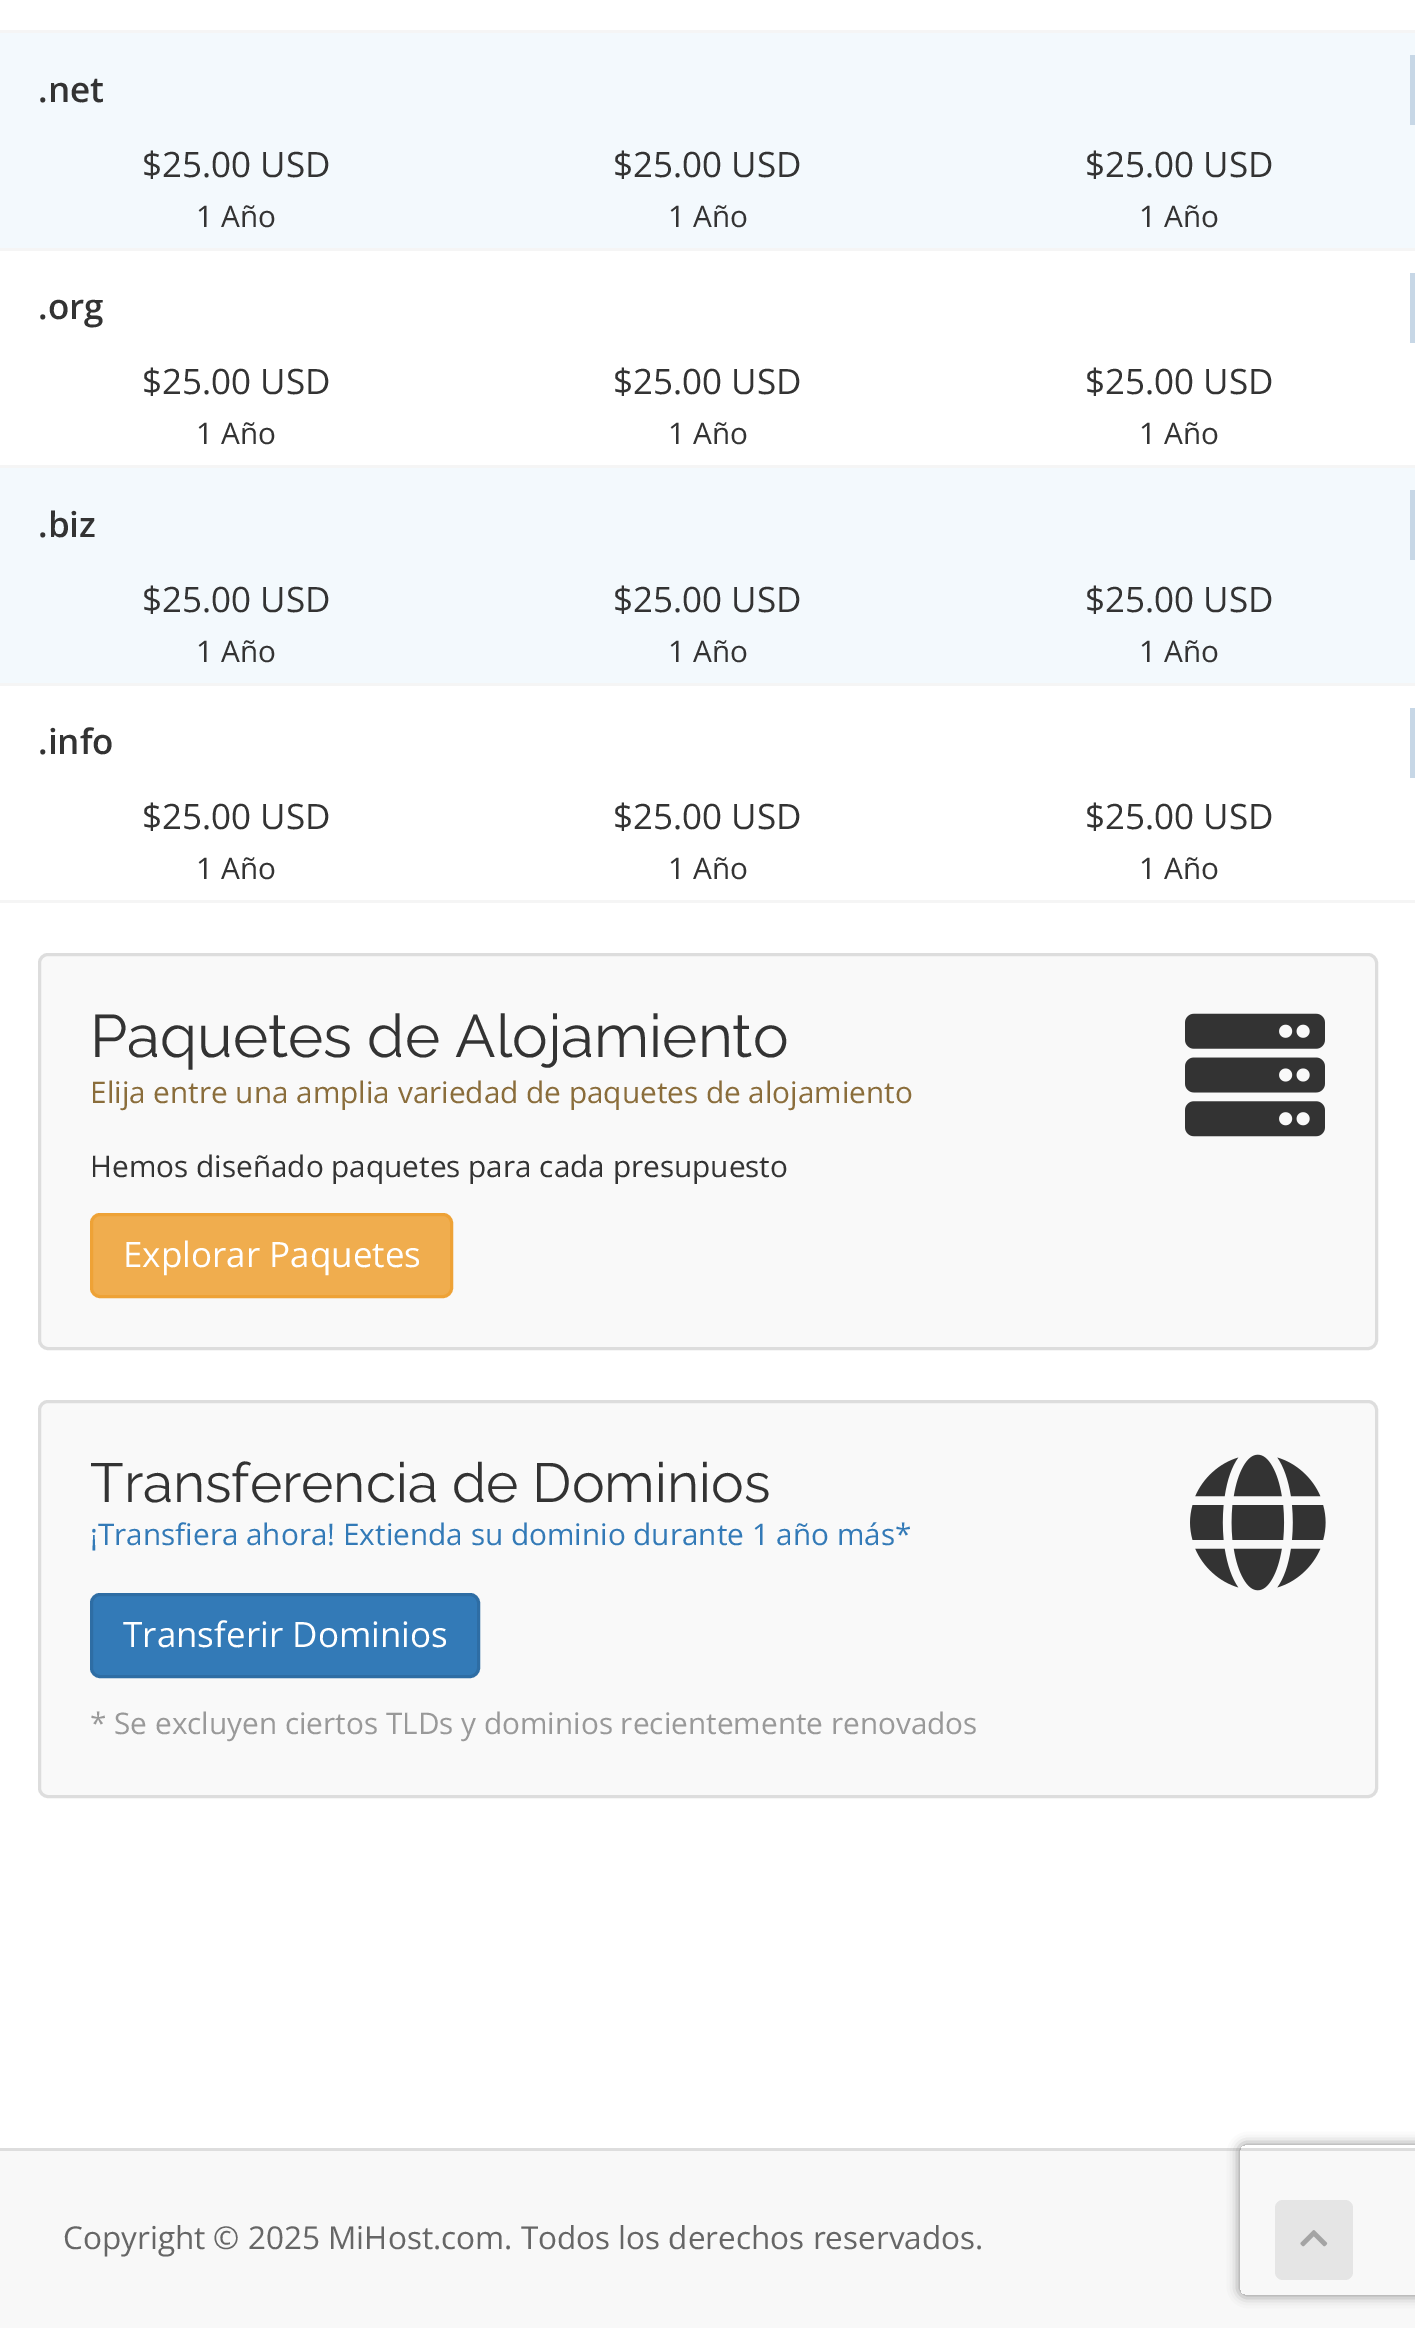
%!PS-Adobe-3.0
%%BoundingBox: 0 0 1415 2328
%%LanguageLevel: 3
%%Pages: 1
%%EndComments
%%BeginProlog
/m { moveto } bind def
/l { lineto } bind def
/c { curveto } bind def
/h { closepath } bind def
/f { fill } bind def
/S { stroke } bind def
/q { gsave } bind def
/Q { grestore } bind def
/w { setlinewidth } bind def
/fn { [ exch dup neg 0 0 3 -1 roll 0 0 ] selectfont } def
/tx { moveto show } def
/bx { rectfill } def
/al { dup .setfillconstantalpha .setstrokeconstantalpha } def
/rr { 5 dict begin { /r /h /w /y /x } { exch def } forall
  x r add y moveto x w add y 2 copy h add r arct x w add y h add x 1 index r arct
  x y h add x y r arct x y 2 copy exch w add exch r arct closepath end } def
/sh { 12 dict begin { /a /b /q /h /w /y /x } { exch def } forall gsave /was 0 def
  9 -2 -9 { dup b mul 4 div /e exch def 1 sub .425 mul 2.718 exch exp 1 add a .99 .min exch div /now exch def
    1 1 now sub 1 was sub div sub al /was now def
    w h .min e 2 mul add 0 gt { x e sub y e sub w e 2 mul add h e 2 mul add
      q e add b .6 mul add w h .min 2 div e add .min 0 .max rr fill } if } for grestore end } def
/im { 5 dict begin { /h /w /y /x /name } { exch def } forall
  gsave x y translate w h scale
  w h 8 [w 0 0 h 0 0] name (r) file false 3 colorimage grestore end } def
%%EndProlog
%%BeginSetup
<< /PageSize [1415 2328] /PageUsesTransparency true >> setpagedevice
%%EndSetup
%%Page: 1 1
0 .pushpdf14devicefilter
0 2328 translate 1 -1 scale
4 setmiterlimit
0.973 setgray
0 0 1415 2328 bx
1 setgray
0 0 1415 2148 bx
0.961 setgray
0 30 1415 3 bx
0.953 0.976 0.992 setrgbcolor
0 33 1415 215 bx
0.961 setgray
0 248 1415 3 bx
0.78 0.843 0.902 setrgbcolor
1410 55 5 70 bx
/OpenSans-SemiBold 35 fn
0.2 setgray
(.net) 38 102 tx
/OpenSans-Regular 35 fn
($25.00 USD) 142 177 tx
/OpenSans-Regular 29.75 fn
(1 Año) 196 227 tx
/OpenSans-Regular 35 fn
($25.00 USD) 613 177 tx
/OpenSans-Regular 29.75 fn
(1 Año) 668 227 tx
/OpenSans-Regular 35 fn
($25.00 USD) 1085 177 tx
/OpenSans-Regular 29.75 fn
(1 Año) 1139 227 tx
0.961 setgray
0 465 1415 3 bx
0.78 0.843 0.902 setrgbcolor
1410 273 5 70 bx
/OpenSans-SemiBold 35 fn
0.2 setgray
(.org) 38 319 tx
/OpenSans-Regular 35 fn
($25.00 USD) 142 394 tx
/OpenSans-Regular 29.75 fn
(1 Año) 196 444 tx
/OpenSans-Regular 35 fn
($25.00 USD) 613 394 tx
/OpenSans-Regular 29.75 fn
(1 Año) 668 444 tx
/OpenSans-Regular 35 fn
($25.00 USD) 1085 394 tx
/OpenSans-Regular 29.75 fn
(1 Año) 1139 444 tx
0.953 0.976 0.992 setrgbcolor
0 468 1415 215 bx
0.961 setgray
0 683 1415 3 bx
0.78 0.843 0.902 setrgbcolor
1410 490 5 70 bx
/OpenSans-SemiBold 35 fn
0.2 setgray
(.biz) 38 537 tx
/OpenSans-Regular 35 fn
($25.00 USD) 142 612 tx
/OpenSans-Regular 29.75 fn
(1 Año) 196 662 tx
/OpenSans-Regular 35 fn
($25.00 USD) 613 612 tx
/OpenSans-Regular 29.75 fn
(1 Año) 668 662 tx
/OpenSans-Regular 35 fn
($25.00 USD) 1085 612 tx
/OpenSans-Regular 29.75 fn
(1 Año) 1139 662 tx
0.961 setgray
0 900 1415 3 bx
0.78 0.843 0.902 setrgbcolor
1410 708 5 70 bx
/OpenSans-SemiBold 35 fn
0.2 setgray
(.info) 38 754 tx
/OpenSans-Regular 35 fn
($25.00 USD) 142 829 tx
/OpenSans-Regular 29.75 fn
(1 Año) 196 879 tx
/OpenSans-Regular 35 fn
($25.00 USD) 613 829 tx
/OpenSans-Regular 29.75 fn
(1 Año) 668 879 tx
/OpenSans-Regular 35 fn
($25.00 USD) 1085 829 tx
/OpenSans-Regular 29.75 fn
(1 Año) 1139 879 tx
0.976 setgray
39.5 954.5 1337 394 8.5 rr q f Q
0.867 setgray
3 w
S
/Raleway-Regular 60 fn
0.2 setgray
(Paquetes de Alojamiento) 90 1057 tx
(image0.raw) 1185 1013 140 124 im
/OpenSans-Regular 29.75 fn
0.541 0.427 0.231 setrgbcolor
(Elija entre una amplia variedad de paquetes de alojamiento) 90 1103 tx
0.2 setgray
(Hemos diseñado paquetes para cada presupuesto) 90 1177 tx
0.941 0.678 0.306 setrgbcolor
91.5 1214.5 360 82 8.5 rr q f Q
0.933 0.635 0.212 setrgbcolor
S
/OpenSans-Regular 35 fn
1 setgray
(Explorar Paquetes) 123 1267 tx
0.976 setgray
39.5 1401.5 1337 395 8.5 rr q f Q
0.867 setgray
S
/Raleway-Regular 55 fn
0.2 setgray
(Transferencia de Dominios) 90 1502 tx
(image1.raw) 1190 1454 136 137 im
/OpenSans-Regular 29.75 fn
0.2 0.478 0.718 setrgbcolor
(¡Transfiera ahora! Extienda su dominio durante 1 año más*) 90 1545 tx
91.5 1594.5 387 82 8.5 rr q f Q
0.18 0.427 0.643 setrgbcolor
S
/OpenSans-Regular 35 fn
1 setgray
(Transferir Dominios) 123 1647 tx
/OpenSans-Regular 29.75 fn
0.6 setgray
(* Se excluyen ciertos TLDs y dominios recientemente renovados) 90 1734 tx
0.867 setgray
0 2148 1415 3 bx
q
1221 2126 m 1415 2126 l 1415 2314 l 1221 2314 l h 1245 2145 m 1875 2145 l 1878 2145 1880 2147 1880 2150 c 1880 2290 l 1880 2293 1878 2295 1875 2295 c 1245 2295 l 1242 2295 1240 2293 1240 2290 c 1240 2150 l 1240 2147 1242 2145 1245 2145 c h eoclip newpath
0.502 setgray
1240 2145 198 150 5 6 1 sh
Q
/OpenSans-Regular 31.5 fn
0.4 setgray
(Copyright © 2025 MiHost.com. Todos los derechos reservados.) 63 2249 tx
0.898 setgray
1275 2200 78 80 8 rr f
(image2.raw) 1300 2230 28 17 im
.poppdf14devicefilter showpage
%%EOF
